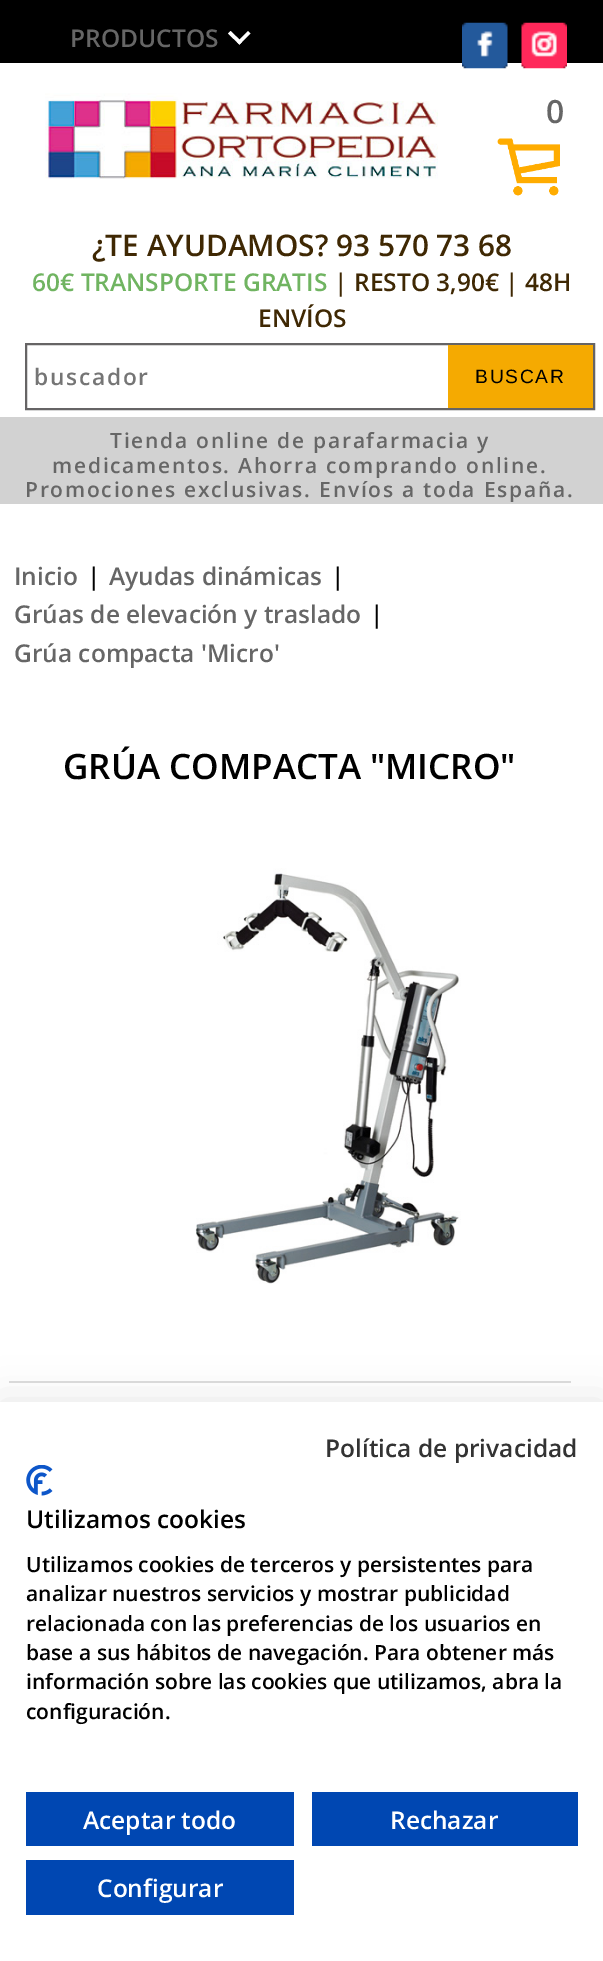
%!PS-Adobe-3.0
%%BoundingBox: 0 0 603 1961
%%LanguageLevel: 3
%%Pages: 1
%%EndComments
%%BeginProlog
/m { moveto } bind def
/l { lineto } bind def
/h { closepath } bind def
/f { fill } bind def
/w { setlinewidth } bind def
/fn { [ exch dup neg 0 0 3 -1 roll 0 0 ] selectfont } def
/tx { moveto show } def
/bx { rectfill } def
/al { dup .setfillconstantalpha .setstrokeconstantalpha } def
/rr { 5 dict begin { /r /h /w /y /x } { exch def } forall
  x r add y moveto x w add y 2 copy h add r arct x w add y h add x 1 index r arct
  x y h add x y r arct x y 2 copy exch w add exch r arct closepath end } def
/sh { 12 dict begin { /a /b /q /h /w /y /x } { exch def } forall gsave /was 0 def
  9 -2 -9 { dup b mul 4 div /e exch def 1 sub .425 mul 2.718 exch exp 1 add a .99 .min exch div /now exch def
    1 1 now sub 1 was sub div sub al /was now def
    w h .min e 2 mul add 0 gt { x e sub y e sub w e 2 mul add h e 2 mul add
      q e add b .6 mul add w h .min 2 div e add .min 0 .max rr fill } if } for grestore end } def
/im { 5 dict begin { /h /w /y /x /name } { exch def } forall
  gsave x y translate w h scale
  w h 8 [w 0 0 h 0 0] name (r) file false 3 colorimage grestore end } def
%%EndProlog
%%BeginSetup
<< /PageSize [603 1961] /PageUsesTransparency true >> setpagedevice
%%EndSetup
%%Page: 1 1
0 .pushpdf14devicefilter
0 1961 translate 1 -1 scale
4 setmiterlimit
1 setgray
0 0 603 1961 bx
0 setgray
0 0 603 63 bx
/OpenSans-SemiBold 24.5 fn
0.4 setgray
(PRODUCTOS) 70 47 tx
1 setgray
230.5 31 m 242 42 l 239.5 44.5 l 228 33.5 l h f
237 42 m 248 31 l 250.5 33.5 l 239.5 44.5 l h f
(image0.raw) 462 22 46 47 im
(image1.raw) 521 22 46 47 im
(image2.raw) 45 93 393 86 im
/OpenSans-SemiBold 32 fn
0.4 setgray
(0) 546 123 tx
(image3.raw) 497 138 63 58 im
/OpenSans-SemiBold 29.75 fn
0.247 0.157 0.012 setrgbcolor
(¿TE AYUDAMOS? 93 570 73 68) 92 256 tx
/OpenSans-SemiBold 24.5 fn
0.439 0.706 0.38 setrgbcolor
(60€ TRANSPORTE GRATIS) 32 291 tx
0.247 0.157 0.012 setrgbcolor
(| RESTO 3,90€ | 48H) 334 291 tx
(ENVÍOS) 258 327 tx
0.4 0.392 0.396 setrgbcolor
2 w
26 344 568 65 rectstroke
/OpenSans-SemiBold 22.75 fn
0.459 setgray
34 385 m 1.75 0 (buscador) ashow
0.961 0.667 0.004 setrgbcolor
448 345 145 63 bx
/LiberationSans-Regular 19.25 fn
0 setgray
475 383 m 1.75 0 (BUSCAR) ashow
0.824 setgray
0 417 603 87 bx
/OpenSans-SemiBold 21 fn
0.4 setgray
110 448 m 1.75 0 (Tienda online de parafarmacia y) ashow
52 473 m 1.75 0 (medicamentos. Ahorra comprando online.) ashow
25 497 m 1.75 0 (Promociones exclusivas. Envíos a toda España.) ashow
/OpenSans-SemiBold 24.5 fn
(Inicio) 14 585 tx
0 setgray
(|) 87 585 tx
0.4 setgray
(Ayudas dinámicas) 109 585 tx
0 setgray
(|) 331 585 tx
0.4 setgray
(Grúas de elevación y traslado) 14 623 tx
0 setgray
(|) 370 623 tx
0.4 setgray
(Grúa compacta 'Micro') 14 662 tx
/OpenSans-SemiBold 35 fn
0 setgray
(GRÚA COMPACTA "MICRO") 63 779 tx
(image4.raw) 195 868 266 416 im
0.867 setgray
9 1381 562 2 bx
0 setgray
0 1402 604 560 0 21 0.1 sh
1 setgray
0 1402 603 559 bx
/OpenSans-SemiBold 24.5 fn
0.2 setgray
(Política de privacidad) 325 1457 tx
(image5.raw) 26 1465 27 31 im
0 setgray
(Utilizamos cookies) 26 1528 tx
/OpenSans-SemiBold 21 fn
(Utilizamos cookies de terceros y persistentes para) 26 1572 tx
(analizar nuestros servicios y mostrar publicidad) 26 1601 tx
(relacionada con las preferencias de los usuarios en) 26 1631 tx
(base a sus hábitos de navegación. Para obtener más) 26 1660 tx
(información sobre las cookies que utilizamos, abra la) 26 1689 tx
(configuración.) 26 1719 tx
0 0.278 0.698 setrgbcolor
26 1792 268 54 bx
/OpenSans-SemiBold 24.5 fn
1 setgray
(Aceptar todo) 83 1829 tx
0 0.278 0.698 setrgbcolor
312 1792 266 54 bx
1 setgray
(Rechazar) 390 1829 tx
0 0.278 0.698 setrgbcolor
26 1860 268 55 bx
1 setgray
(Configurar) 97 1897 tx
.poppdf14devicefilter showpage
%%EOF
